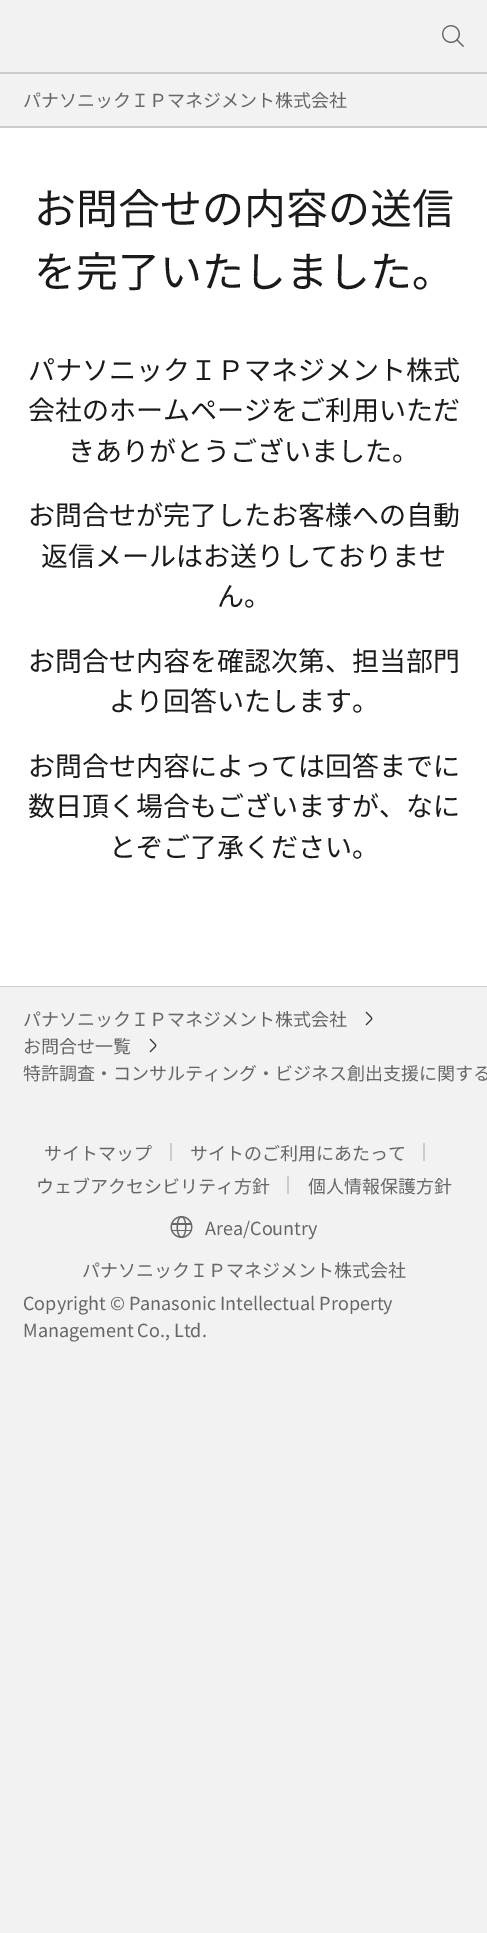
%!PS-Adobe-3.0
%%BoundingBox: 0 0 487 1933
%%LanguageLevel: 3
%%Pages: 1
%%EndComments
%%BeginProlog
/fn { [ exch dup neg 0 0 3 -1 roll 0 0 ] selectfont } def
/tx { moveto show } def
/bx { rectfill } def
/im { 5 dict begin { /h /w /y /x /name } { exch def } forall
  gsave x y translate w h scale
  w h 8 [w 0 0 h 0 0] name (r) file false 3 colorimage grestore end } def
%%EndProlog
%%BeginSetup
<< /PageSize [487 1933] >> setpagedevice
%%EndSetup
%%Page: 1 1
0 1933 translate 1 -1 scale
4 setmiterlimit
0.949 setgray
0 0 487 1933 bx
(image0.raw) 442 25 22 22 im
0.8 setgray
0 72 487 2 bx
/NotoSansJP-Regular 18 fn
0.4 setgray
(パナソニックＩＰマネジメント株式会社) 23 107 tx
0.8 setgray
0 126 487 2 bx
1 setgray
0 128 487 858 bx
/NotoSansJP-Regular 42 fn
0.102 setgray
(お問合せの内容の送信) 34 224 tx
(を完了いたしました。) 34 287 tx
/NotoSansJP-Regular 27 fn
(パナソニックＩＰマネジメント株式) 28 380 tx
(会社のホームページをご利用いただ) 28 420 tx
(きありがとうございました。) 68 461 tx
(お問合せが完了したお客様への自動) 28 525 tx
(返信メールはお送りしておりませ) 41 566 tx
(ん。) 217 606 tx
(お問合せ内容を確認次第、担当部門) 28 671 tx
(より回答いたします。) 109 711 tx
(お問合せ内容によっては回答までに) 28 776 tx
(数日頂く場合もございますが、なに) 28 816 tx
(とぞご了承ください。) 109 857 tx
0.8 setgray
0 986 487 1 bx
/NotoSansJP-Regular 18 fn
0.4 setgray
(パナソニックＩＰマネジメント株式会社) 23 1026 tx
(image1.raw) 365 1011 8 15 im
(お問合せ一覧) 23 1053 tx
(image1.raw) 149 1038 8 15 im
(特許調査・コンサルティング・ビジネス創出支援に関する) 23 1080 tx
(サイトマップ) 44 1160 tx
0.8 setgray
170 1143 2 18 bx
0.4 setgray
(サイトのご利用にあたって) 190 1160 tx
0.8 setgray
423 1143 2 18 bx
0.4 setgray
(ウェブアクセシビリティ方針) 36 1193 tx
0.8 setgray
287 1176 2 18 bx
0.4 setgray
(個人情報保護方針) 308 1193 tx
(image2.raw) 170 1216 23 22 im
(Area/Country) 205 1235 tx
(パナソニックＩＰマネジメント株式会社) 82 1277 tx
(Copyright © Panasonic Intellectual Property) 23 1310 tx
(Management Co., Ltd.) 23 1337 tx
showpage
%%EOF
